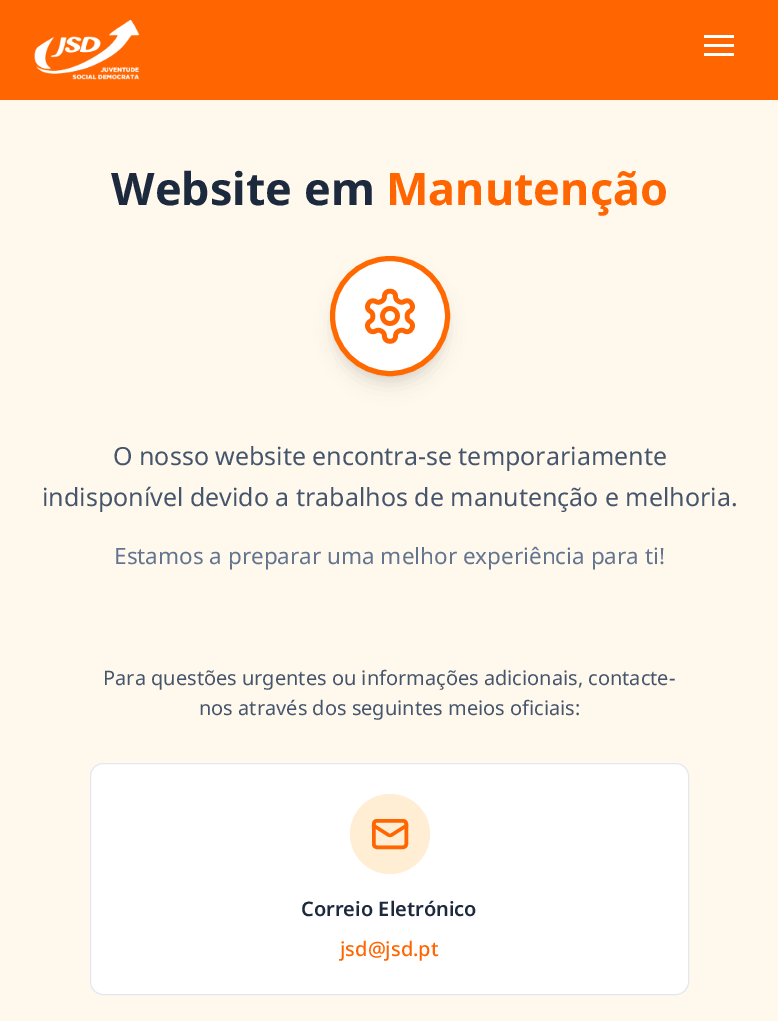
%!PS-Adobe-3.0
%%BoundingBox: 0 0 778 1021
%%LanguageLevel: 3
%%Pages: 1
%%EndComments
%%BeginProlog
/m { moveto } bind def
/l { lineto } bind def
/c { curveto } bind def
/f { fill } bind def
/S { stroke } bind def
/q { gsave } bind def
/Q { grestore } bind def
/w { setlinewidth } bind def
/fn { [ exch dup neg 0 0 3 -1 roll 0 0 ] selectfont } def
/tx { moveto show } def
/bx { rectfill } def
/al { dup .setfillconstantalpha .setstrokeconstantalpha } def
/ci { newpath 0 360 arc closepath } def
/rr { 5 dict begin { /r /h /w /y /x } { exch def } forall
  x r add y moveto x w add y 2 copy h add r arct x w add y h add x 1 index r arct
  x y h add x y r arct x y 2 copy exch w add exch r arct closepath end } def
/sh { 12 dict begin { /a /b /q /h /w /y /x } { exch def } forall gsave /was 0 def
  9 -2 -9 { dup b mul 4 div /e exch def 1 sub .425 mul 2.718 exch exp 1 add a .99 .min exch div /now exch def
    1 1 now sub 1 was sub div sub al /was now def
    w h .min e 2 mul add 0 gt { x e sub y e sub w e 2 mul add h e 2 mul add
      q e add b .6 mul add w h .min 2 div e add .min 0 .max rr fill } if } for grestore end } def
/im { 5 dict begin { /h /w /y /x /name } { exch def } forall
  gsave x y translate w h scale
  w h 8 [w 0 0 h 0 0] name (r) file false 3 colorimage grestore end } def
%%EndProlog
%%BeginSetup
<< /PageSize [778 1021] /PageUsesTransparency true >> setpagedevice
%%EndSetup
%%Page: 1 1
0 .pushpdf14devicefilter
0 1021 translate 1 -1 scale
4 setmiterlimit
1 0.973 0.925 setrgbcolor
0 0 778 1021 bx
1 0.396 0 setrgbcolor
0 0 778 100 bx
(image0.raw) 34 20 106 60 im
1 setgray
704 35 30 3 bx
704 44 30 3 bx
704 53 30 3 bx
/NotoSans-Bold 45 fn
0.114 0.161 0.239 setrgbcolor
(Website em) 111 205 tx
1 0.396 0 setrgbcolor
(Manutenção) 386 205 tx
0 setgray
335 266 110 110 55 4 0.1 sh
334 273 112 112 56 9.5 0.1 sh
1 setgray
390 316 57.5 ci q f Q
1 0.412 0 setrgbcolor
5 w
S
(image1.raw) 365 288 50 56 im
/NotoSans-Regular 25 fn
0.271 0.333 0.424 setrgbcolor
(O nosso website encontra-se temporariamente) 113 465 tx
(indisponível devido a trabalhos de manutenção e melhoria.) 42 506 tx
/NotoSans-Regular 22.5 fn
0.384 0.455 0.557 setrgbcolor
(Estamos a preparar uma melhor experiência para ti!) 114 564 tx
/NotoSans-Regular 20 fn
0.271 0.333 0.424 setrgbcolor
(Para questões urgentes ou informações adicionais, contacte-) 103 685 tx
(nos através dos seguintes meios oficiais:) 199 715 tx
1 setgray
90.5 763.5 598 231 12.5 rr q f Q
0.886 0.91 0.941 setrgbcolor
1 w
S
1 0.929 0.831 setrgbcolor
390 834 40 ci f
1 0.396 0 setrgbcolor
3.3 w
1 setlinecap
1 setlinejoin
406.5 825.5 m 391.5 835 l 390.5 835.5 389.5 835.5 388.5 835 c 373.5 825.5 l S
3.5 w
0 setlinecap
0 setlinejoin
373.75 820.75 32.5 26.5 3.25 rr S
/NotoSans-SemiBold 20 fn
0.114 0.161 0.239 setrgbcolor
(Correio Eletrónico) 301 916 tx
/NotoSans-Medium 20 fn
1 0.396 0 setrgbcolor
(jsd@jsd.pt) 340 956 tx
.poppdf14devicefilter showpage
%%EOF
